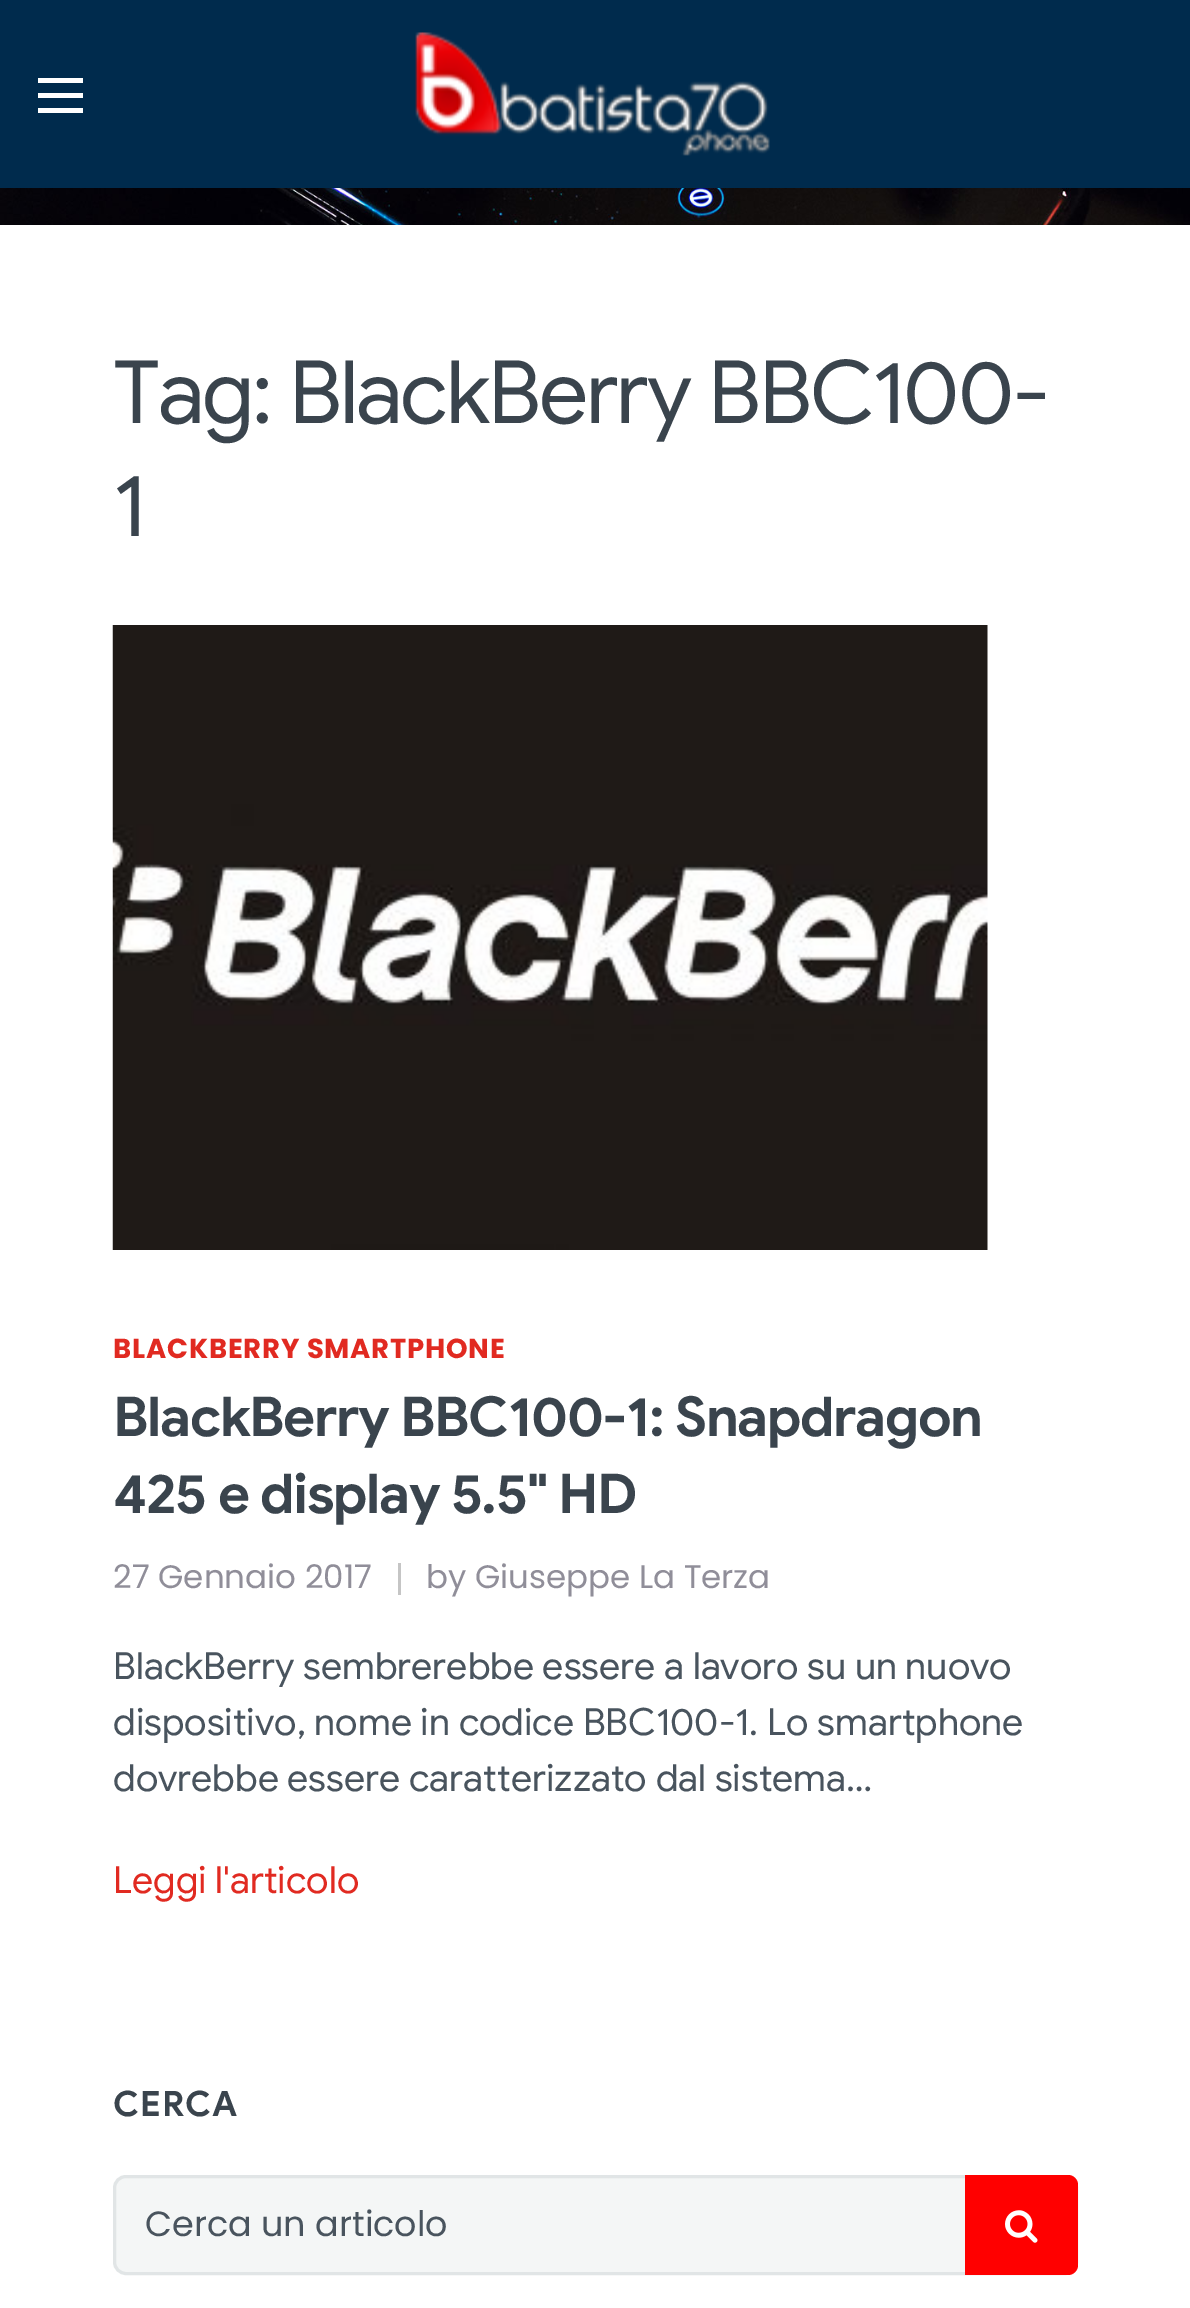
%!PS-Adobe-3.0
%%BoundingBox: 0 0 1190 2308
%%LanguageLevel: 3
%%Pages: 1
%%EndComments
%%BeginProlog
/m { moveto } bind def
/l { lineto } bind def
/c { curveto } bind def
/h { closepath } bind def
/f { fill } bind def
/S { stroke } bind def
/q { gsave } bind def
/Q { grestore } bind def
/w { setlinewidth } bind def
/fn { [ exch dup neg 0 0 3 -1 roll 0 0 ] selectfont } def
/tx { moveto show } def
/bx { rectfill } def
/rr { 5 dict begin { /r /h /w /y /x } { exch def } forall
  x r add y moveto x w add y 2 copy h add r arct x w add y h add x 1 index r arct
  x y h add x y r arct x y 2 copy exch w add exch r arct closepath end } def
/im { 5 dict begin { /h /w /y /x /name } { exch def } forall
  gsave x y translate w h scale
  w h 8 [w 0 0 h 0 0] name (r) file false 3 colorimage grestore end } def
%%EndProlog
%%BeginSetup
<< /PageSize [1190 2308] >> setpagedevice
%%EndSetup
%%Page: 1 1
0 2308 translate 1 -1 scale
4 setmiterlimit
1 setgray
0 0 1190 2308 bx
(image0.raw) 0 188 1190 37 im
0 0.169 0.302 setrgbcolor
0 0 1190 188 bx
1 setgray
38 93 45 5 bx
38 78 45 5 bx
38 108 45 5 bx
(image1.raw) 415 32 355 124 im
/GoogleSans-Regular 87.5 fn
0.227 0.267 0.302 setrgbcolor
113 423 m -2.2 0 (Tag: BlackBerry BBC100-) ashow
113 536 m -2.2 0 (1) ashow
(image2.raw) 112 625 876 625 im
/Poppins-Bold 27.5 fn
0.882 0.165 0.129 setrgbcolor
113 1358 m 0.8 0 (BLACKBERRY SMARTPHONE) ashow
/GoogleSans-Bold 55 fn
0.227 0.267 0.302 setrgbcolor
113 1436 m -1.4 0 (BlackBerry BBC100-1: Snapdragon) ashow
113 1513 m -1.4 0 (425 e display 5.5" HD) ashow
/Poppins-Regular 32.5 fn
0.565 0.557 0.6 setrgbcolor
(27 Gennaio 2017) 113 1588 tx
0.773 setgray
398 1563 3 32 bx
0.565 0.557 0.6 setrgbcolor
(by Giuseppe La Terza) 426 1588 tx
/GoogleSans-Regular 37.5 fn
0.286 0.329 0.369 setrgbcolor
(BlackBerry sembrerebbe essere a lavoro su un nuovo) 113 1679 tx
(dispositivo, nome in codice BBC100-1. Lo smartphone) 113 1735 tx
(dovrebbe essere caratterizzato dal sistema…) 113 1791 tx
0.882 0.165 0.129 setrgbcolor
(Leggi l'articolo) 113 1893 tx
/GoogleSans-Bold 35 fn
0.227 0.267 0.302 setrgbcolor
113 2116 m 1 0 (CERCA) ashow
0.957 0.965 0.965 setrgbcolor
114.5 2176.5 962 97 11.5 rr q f Q
0.882 0.898 0.902 setrgbcolor
3 w
S
/Poppins-Regular 35 fn
0.286 0.329 0.369 setrgbcolor
(Cerca un articolo) 145 2236 tx
1 0 0 setrgbcolor
965 2175 m 1068 2175 l 1073.5 2175 1078 2179.5 1078 2185 c 1078 2265 l 1078 2270.5 1073.5 2275 1068 2275 c 965 2275 l h f
(image3.raw) 1005 2210 33 33 im
showpage
%%EOF
